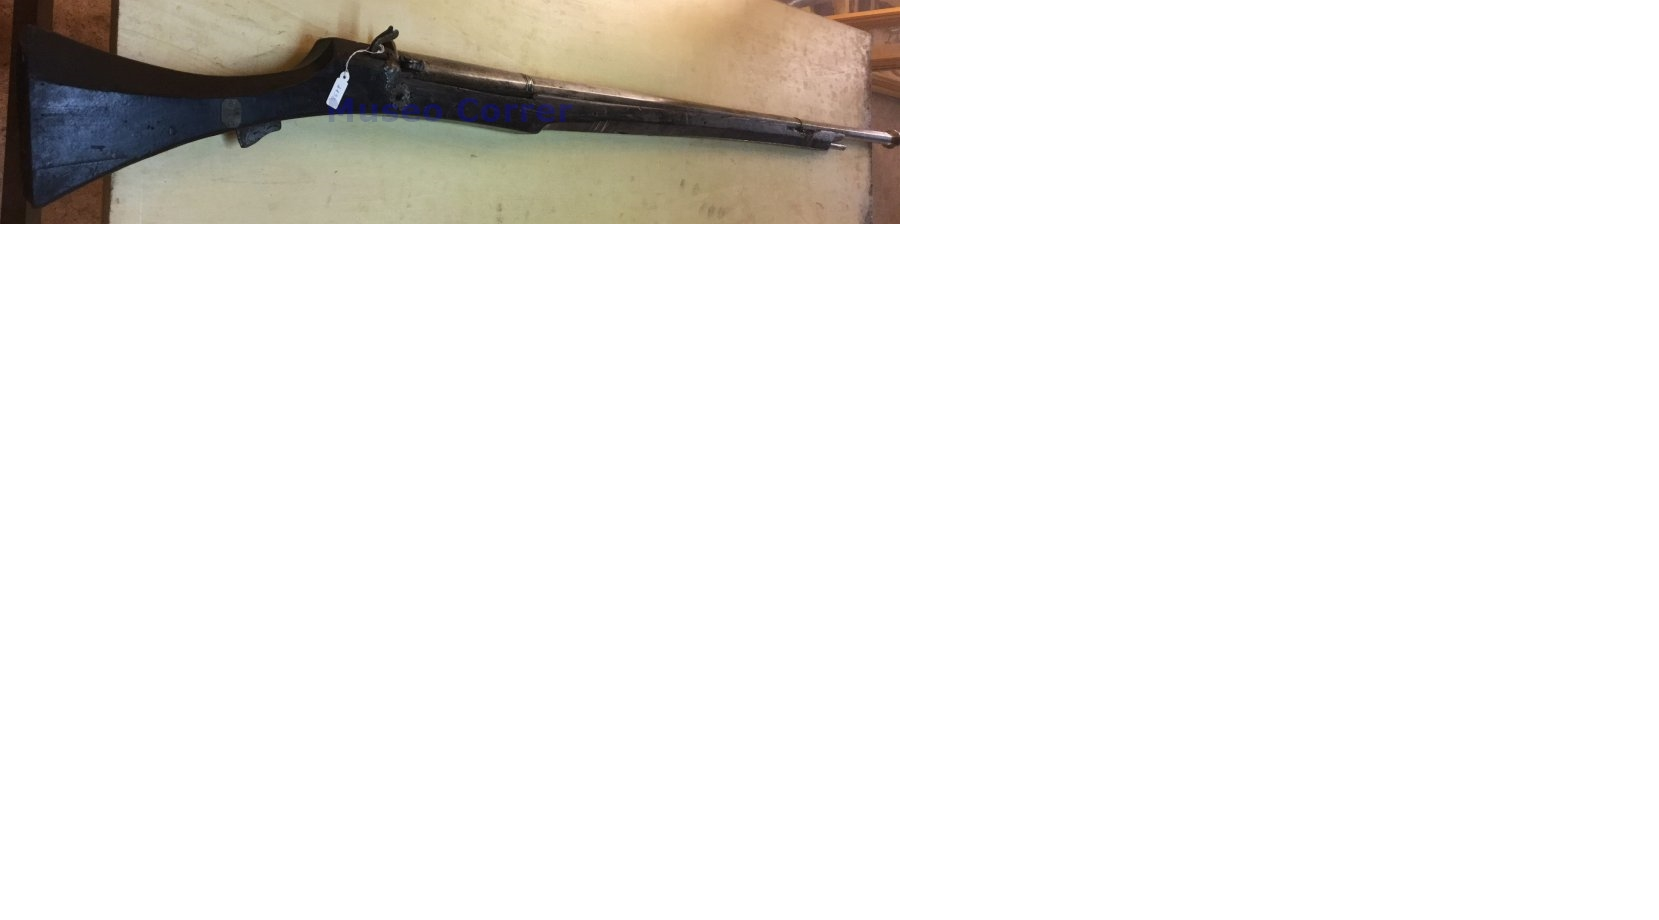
%!PS-Adobe-3.0
%%BoundingBox: 0 0 1659 920
%%LanguageLevel: 3
%%Pages: 1
%%EndComments
%%BeginProlog
/bx { rectfill } def
/im { 5 dict begin { /h /w /y /x /name } { exch def } forall
  gsave x y translate w h scale
  w h 8 [w 0 0 h 0 0] name (r) file false 3 colorimage grestore end } def
%%EndProlog
%%BeginSetup
<< /PageSize [1659 920] >> setpagedevice
%%EndSetup
%%Page: 1 1
0 920 translate 1 -1 scale
4 setmiterlimit
1 setgray
0 0 1659 920 bx
(image0.raw) 0 0 900 224 im
showpage
%%EOF
